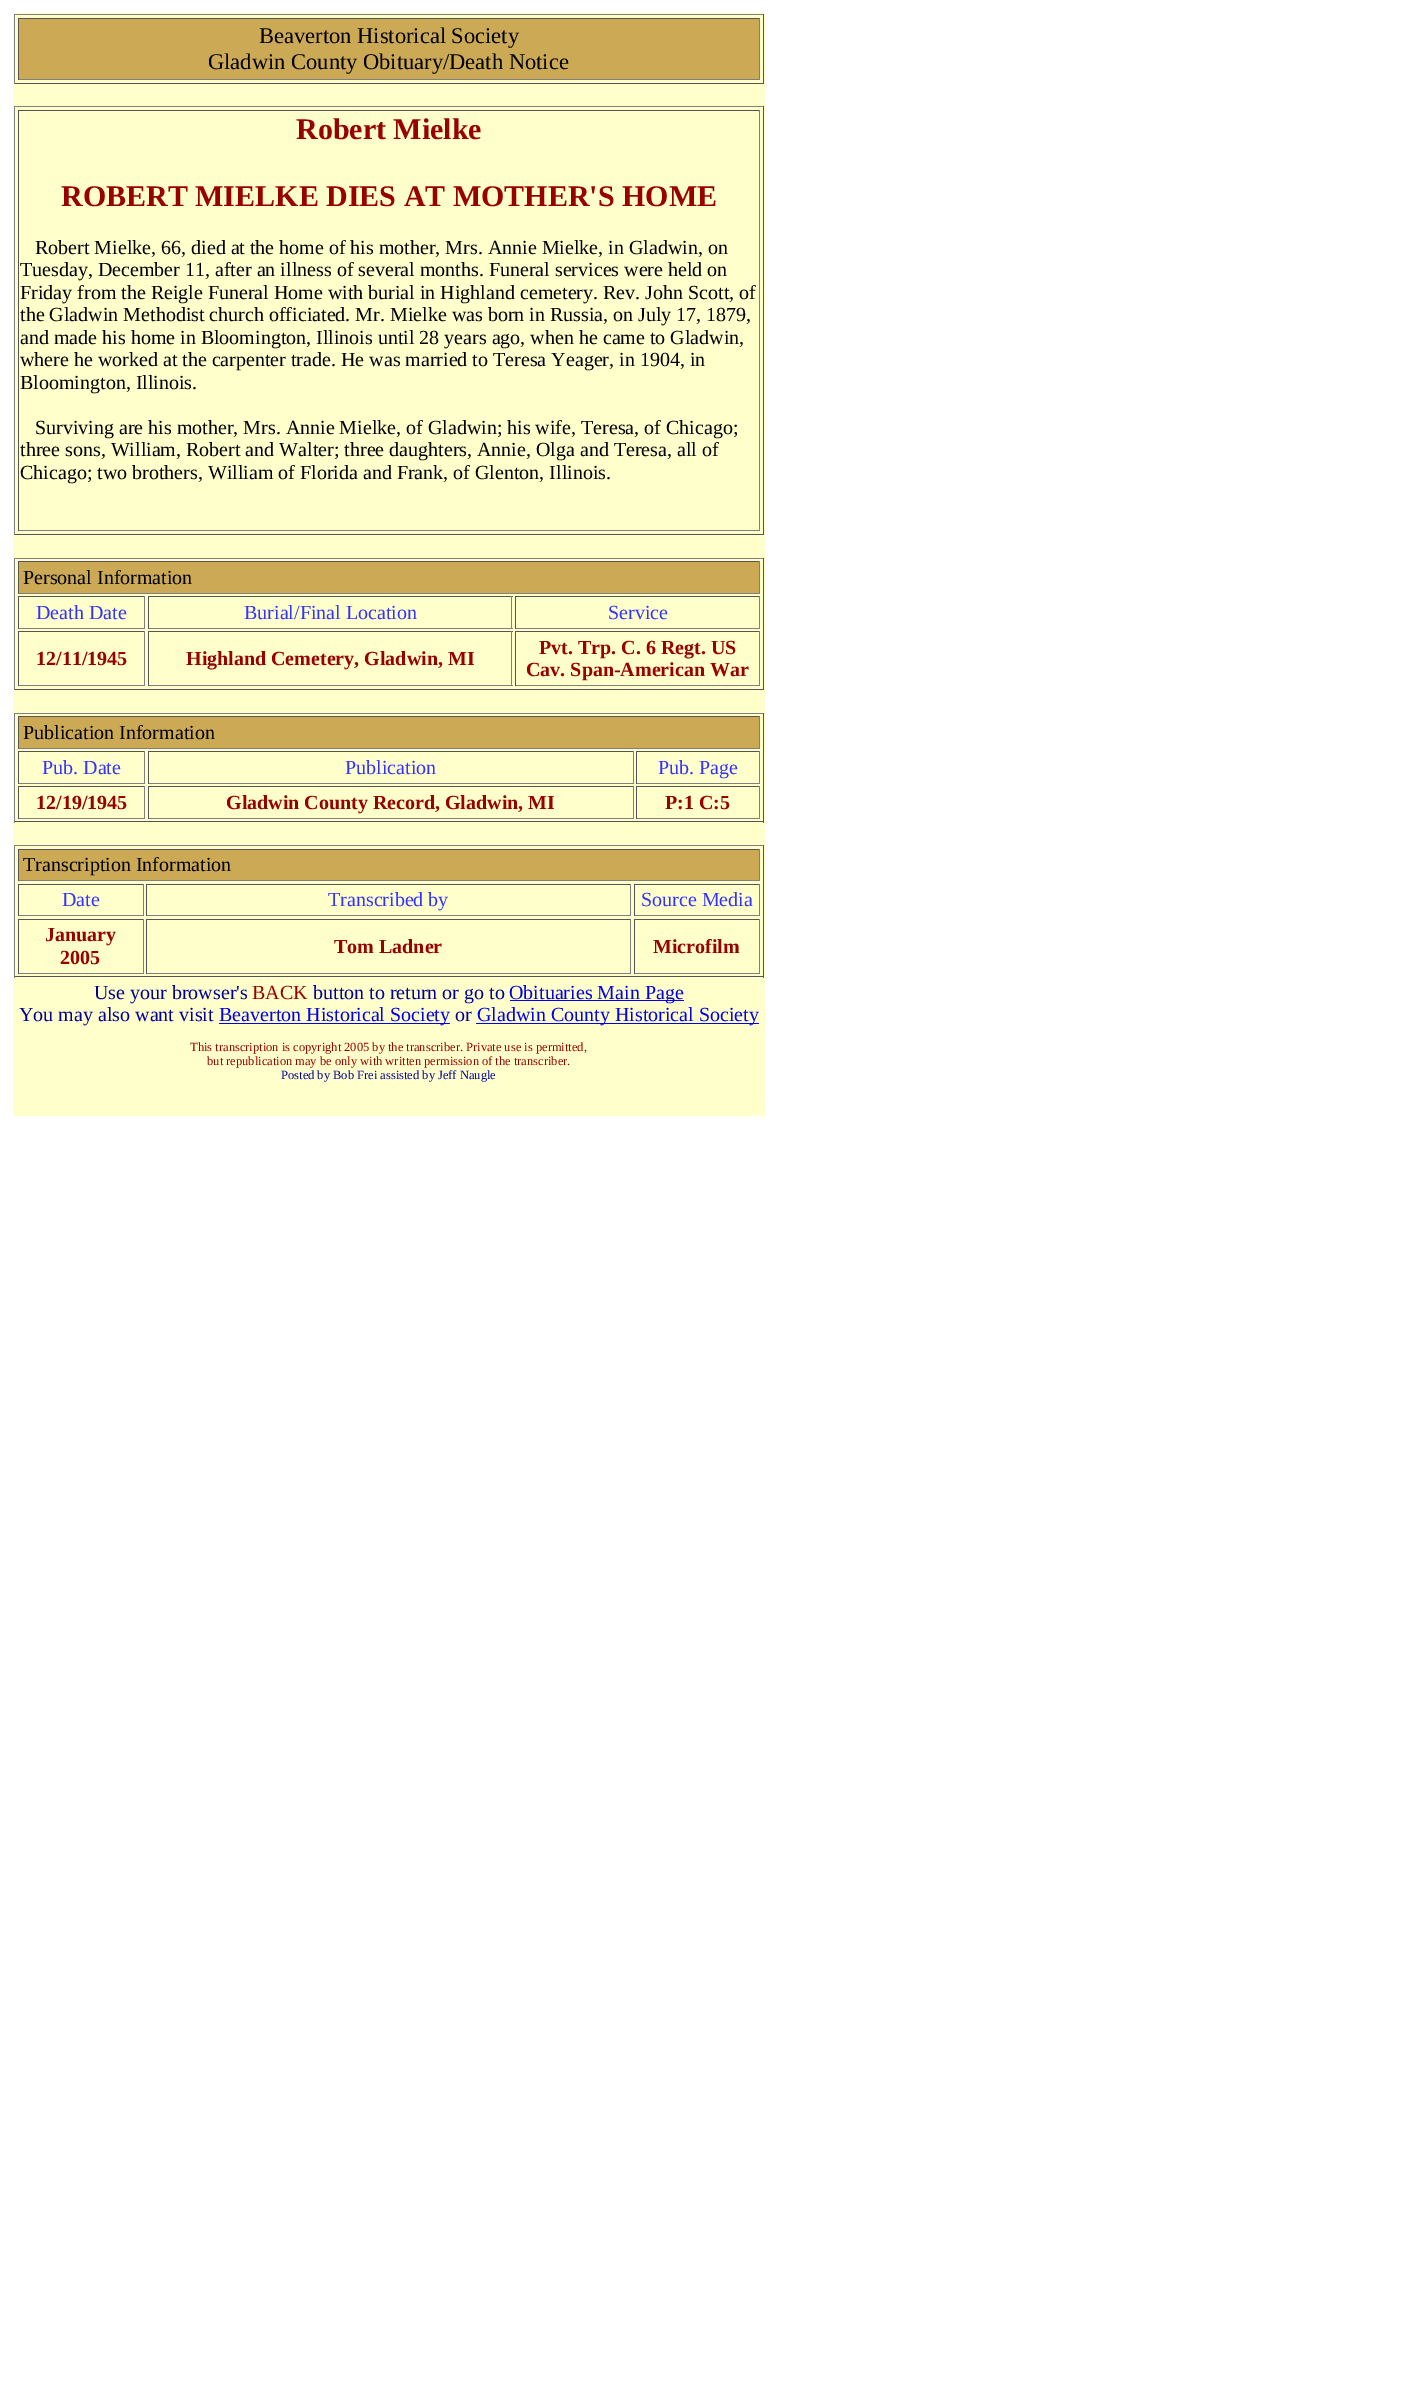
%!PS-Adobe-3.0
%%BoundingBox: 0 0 1407 2397
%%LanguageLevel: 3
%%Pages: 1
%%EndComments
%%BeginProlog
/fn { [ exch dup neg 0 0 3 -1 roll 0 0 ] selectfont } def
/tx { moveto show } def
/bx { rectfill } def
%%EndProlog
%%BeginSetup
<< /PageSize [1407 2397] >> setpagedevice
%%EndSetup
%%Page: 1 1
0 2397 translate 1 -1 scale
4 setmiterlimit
1 setgray
0 0 1407 2397 bx
1 1 0.8 setrgbcolor
13 13 752 1103 bx
0.502 setgray
14 14 750 1 bx
0.333 setgray
763 14 1 70 bx
14 83 750 1 bx
0.502 setgray
14 14 1 70 bx
0.8 0.667 0.333 setrgbcolor
19 19 740 60 bx
0.333 setgray
18 18 742 1 bx
0.502 setgray
759 18 1 62 bx
18 79 742 1 bx
0.333 setgray
18 18 1 62 bx
/LiberationSerif-Regular 22.5 fn
0 setgray
(Beaverton Historical Society) 259 43 tx
(Gladwin County Obituary/Death Notice) 208 69 tx
0.502 setgray
14 106 750 1 bx
0.333 setgray
763 106 1 429 bx
14 534 750 1 bx
0.502 setgray
14 106 1 429 bx
0.333 setgray
18 110 742 1 bx
0.502 setgray
759 110 1 421 bx
18 530 742 1 bx
0.333 setgray
18 110 1 421 bx
/LiberationSerif-Bold 30 fn
0.6 0 0 setrgbcolor
(Robert Mielke) 296 139 tx
(ROBERT MIELKE DIES AT MOTHER'S HOME) 61 206 tx
/LiberationSerif-Regular 20 fn
0 setgray
(Robert Mielke, 66, died at the home of his mother, Mrs. Annie Mielke, in Gladwin, on) 35 254 tx
(Tuesday, December 11, after an illness of several months. Funeral services were held on) 20 276 tx
(Friday from the Reigle Funeral Home with burial in Highland cemetery. Rev. John Scott, of) 20 299 tx
(the Gladwin Methodist church officiated. Mr. Mielke was born in Russia, on July 17, 1879,) 20 321 tx
(and made his home in Bloomington, Illinois until 28 years ago, when he came to Gladwin,) 20 344 tx
(where he worked at the carpenter trade. He was married to Teresa Yeager, in 1904, in) 20 366 tx
(Bloomington, Illinois.) 20 389 tx
(Surviving are his mother, Mrs. Annie Mielke, of Gladwin; his wife, Teresa, of Chicago;) 35 434 tx
(three sons, William, Robert and Walter; three daughters, Annie, Olga and Teresa, all of) 20 456 tx
(Chicago; two brothers, William of Florida and Frank, of Glenton, Illinois.) 20 479 tx
0.502 setgray
14 558 750 1 bx
0.333 setgray
763 558 1 132 bx
14 689 750 1 bx
0.502 setgray
14 558 1 132 bx
0.8 0.667 0.333 setrgbcolor
19 562 740 31 bx
0.333 setgray
18 561 742 1 bx
0.502 setgray
759 561 1 33 bx
18 593 742 1 bx
0.333 setgray
18 561 1 33 bx
0 setgray
(Personal Information) 23 584 tx
0.333 setgray
18 596 127 1 bx
0.502 setgray
144 596 1 33 bx
18 628 127 1 bx
0.333 setgray
18 596 1 33 bx
0.2 0.2 1 setrgbcolor
(Death Date) 36 619 tx
0.333 setgray
148 596 365 1 bx
0.502 setgray
511 596 1 33 bx
148 628 365 1 bx
0.333 setgray
148 596 1 33 bx
0.2 0.2 1 setrgbcolor
(Burial/Final Location) 244 619 tx
0.333 setgray
515 596 245 1 bx
0.502 setgray
759 596 1 33 bx
515 628 245 1 bx
0.333 setgray
515 596 1 33 bx
0.2 0.2 1 setrgbcolor
(Service) 608 619 tx
0.333 setgray
18 631 127 1 bx
0.502 setgray
144 631 1 55 bx
18 685 127 1 bx
0.333 setgray
18 631 1 55 bx
/LiberationSerif-Bold 20 fn
0.6 0 0 setrgbcolor
(12/11/1945) 36 665 tx
0.333 setgray
148 631 365 1 bx
0.502 setgray
511 631 1 55 bx
148 685 365 1 bx
0.333 setgray
148 631 1 55 bx
0.6 0 0 setrgbcolor
(Highland Cemetery, Gladwin, MI) 186 665 tx
0.333 setgray
515 631 245 1 bx
0.502 setgray
759 631 1 55 bx
515 685 245 1 bx
0.333 setgray
515 631 1 55 bx
0.6 0 0 setrgbcolor
(Pvt. Trp. C. 6 Regt. US) 539 654 tx
(Cav. Span-American War) 526 676 tx
0.502 setgray
14 713 750 1 bx
0.333 setgray
763 713 1 110 bx
14 821 750 1 bx
0.502 setgray
14 713 1 110 bx
0.8 0.667 0.333 setrgbcolor
19 717 740 31 bx
0.333 setgray
18 716 742 1 bx
0.502 setgray
759 716 1 33 bx
18 748 742 1 bx
0.333 setgray
18 716 1 33 bx
/LiberationSerif-Regular 20 fn
0 setgray
(Publication Information) 23 739 tx
0.333 setgray
18 751 127 1 bx
0.502 setgray
144 751 1 33 bx
18 783 127 1 bx
0.333 setgray
18 751 1 33 bx
0.2 0.2 1 setrgbcolor
(Pub. Date) 42 774 tx
0.333 setgray
148 751 486 1 bx
0.502 setgray
633 751 1 33 bx
148 783 486 1 bx
0.333 setgray
148 751 1 33 bx
0.2 0.2 1 setrgbcolor
(Publication) 345 774 tx
0.333 setgray
636 751 124 1 bx
0.502 setgray
759 751 1 33 bx
636 783 124 1 bx
0.333 setgray
636 751 1 33 bx
0.2 0.2 1 setrgbcolor
(Pub. Page) 658 774 tx
0.333 setgray
18 786 127 1 bx
0.502 setgray
144 786 1 33 bx
18 818 127 1 bx
0.333 setgray
18 786 1 33 bx
/LiberationSerif-Bold 20 fn
0.6 0 0 setrgbcolor
(12/19/1945) 36 809 tx
0.333 setgray
148 786 486 1 bx
0.502 setgray
633 786 1 33 bx
148 818 486 1 bx
0.333 setgray
148 786 1 33 bx
0.6 0 0 setrgbcolor
(Gladwin County Record, Gladwin, MI) 226 809 tx
0.333 setgray
636 786 124 1 bx
0.502 setgray
759 786 1 33 bx
636 818 124 1 bx
0.333 setgray
636 786 1 33 bx
0.6 0 0 setrgbcolor
(P:1 C:5) 665 809 tx
0.502 setgray
14 845 750 1 bx
0.333 setgray
763 845 1 133 bx
14 976 750 1 bx
0.502 setgray
14 845 1 133 bx
0.8 0.667 0.333 setrgbcolor
19 850 740 30 bx
0.333 setgray
18 849 742 1 bx
0.502 setgray
759 849 1 32 bx
18 880 742 1 bx
0.333 setgray
18 849 1 32 bx
/LiberationSerif-Regular 20 fn
0 setgray
(Transcription Information) 23 871 tx
0.333 setgray
18 884 126 1 bx
0.502 setgray
143 884 1 32 bx
18 915 126 1 bx
0.333 setgray
18 884 1 32 bx
0.2 0.2 1 setrgbcolor
(Date) 62 906 tx
0.333 setgray
146 884 485 1 bx
0.502 setgray
630 884 1 32 bx
146 915 485 1 bx
0.333 setgray
146 884 1 32 bx
0.2 0.2 1 setrgbcolor
(Transcribed by) 328 906 tx
0.333 setgray
634 884 126 1 bx
0.502 setgray
759 884 1 32 bx
634 915 126 1 bx
0.333 setgray
634 884 1 32 bx
0.2 0.2 1 setrgbcolor
(Source Media) 641 906 tx
0.333 setgray
18 919 126 1 bx
0.502 setgray
143 919 1 55 bx
18 973 126 1 bx
0.333 setgray
18 919 1 55 bx
/LiberationSerif-Bold 20 fn
0.6 0 0 setrgbcolor
(January) 45 941 tx
(2005) 60 964 tx
0.333 setgray
146 919 485 1 bx
0.502 setgray
630 919 1 55 bx
146 973 485 1 bx
0.333 setgray
146 919 1 55 bx
0.6 0 0 setrgbcolor
(Tom Ladner) 334 953 tx
0.333 setgray
634 919 126 1 bx
0.502 setgray
759 919 1 55 bx
634 973 126 1 bx
0.333 setgray
634 919 1 55 bx
0.6 0 0 setrgbcolor
(Microfilm) 653 953 tx
/LiberationSerif-Regular 20 fn
0 0 0.6 setrgbcolor
(Use your browser's) 94 999 tx
0.6 0 0 setrgbcolor
(BACK) 252 999 tx
0 0 0.6 setrgbcolor
(button to return or go to) 313 999 tx
0 0 0.933 setrgbcolor
510 1000 174 1 bx
(Obituaries Main Page) 509 999 tx
0 0 0.6 setrgbcolor
(You may also want visit) 19 1021 tx
0 0 0.933 setrgbcolor
219 1023 231 1 bx
(Beaverton Historical Society) 219 1021 tx
0 0 0.6 setrgbcolor
(or) 455 1021 tx
0 0 0.933 setrgbcolor
476 1023 283 1 bx
(Gladwin County Historical Society) 477 1021 tx
/LiberationSerif-Regular 12.5 fn
0.6 0 0 setrgbcolor
(This transcription is copyright 2005 by the transcriber. Private use is permitted,) 190 1051 tx
(but republication may be only with written permission of the transcriber.) 207 1065 tx
0 0 0.6 setrgbcolor
(Posted by Bob Frei assisted by Jeff Naugle) 281 1079 tx
showpage
%%EOF
